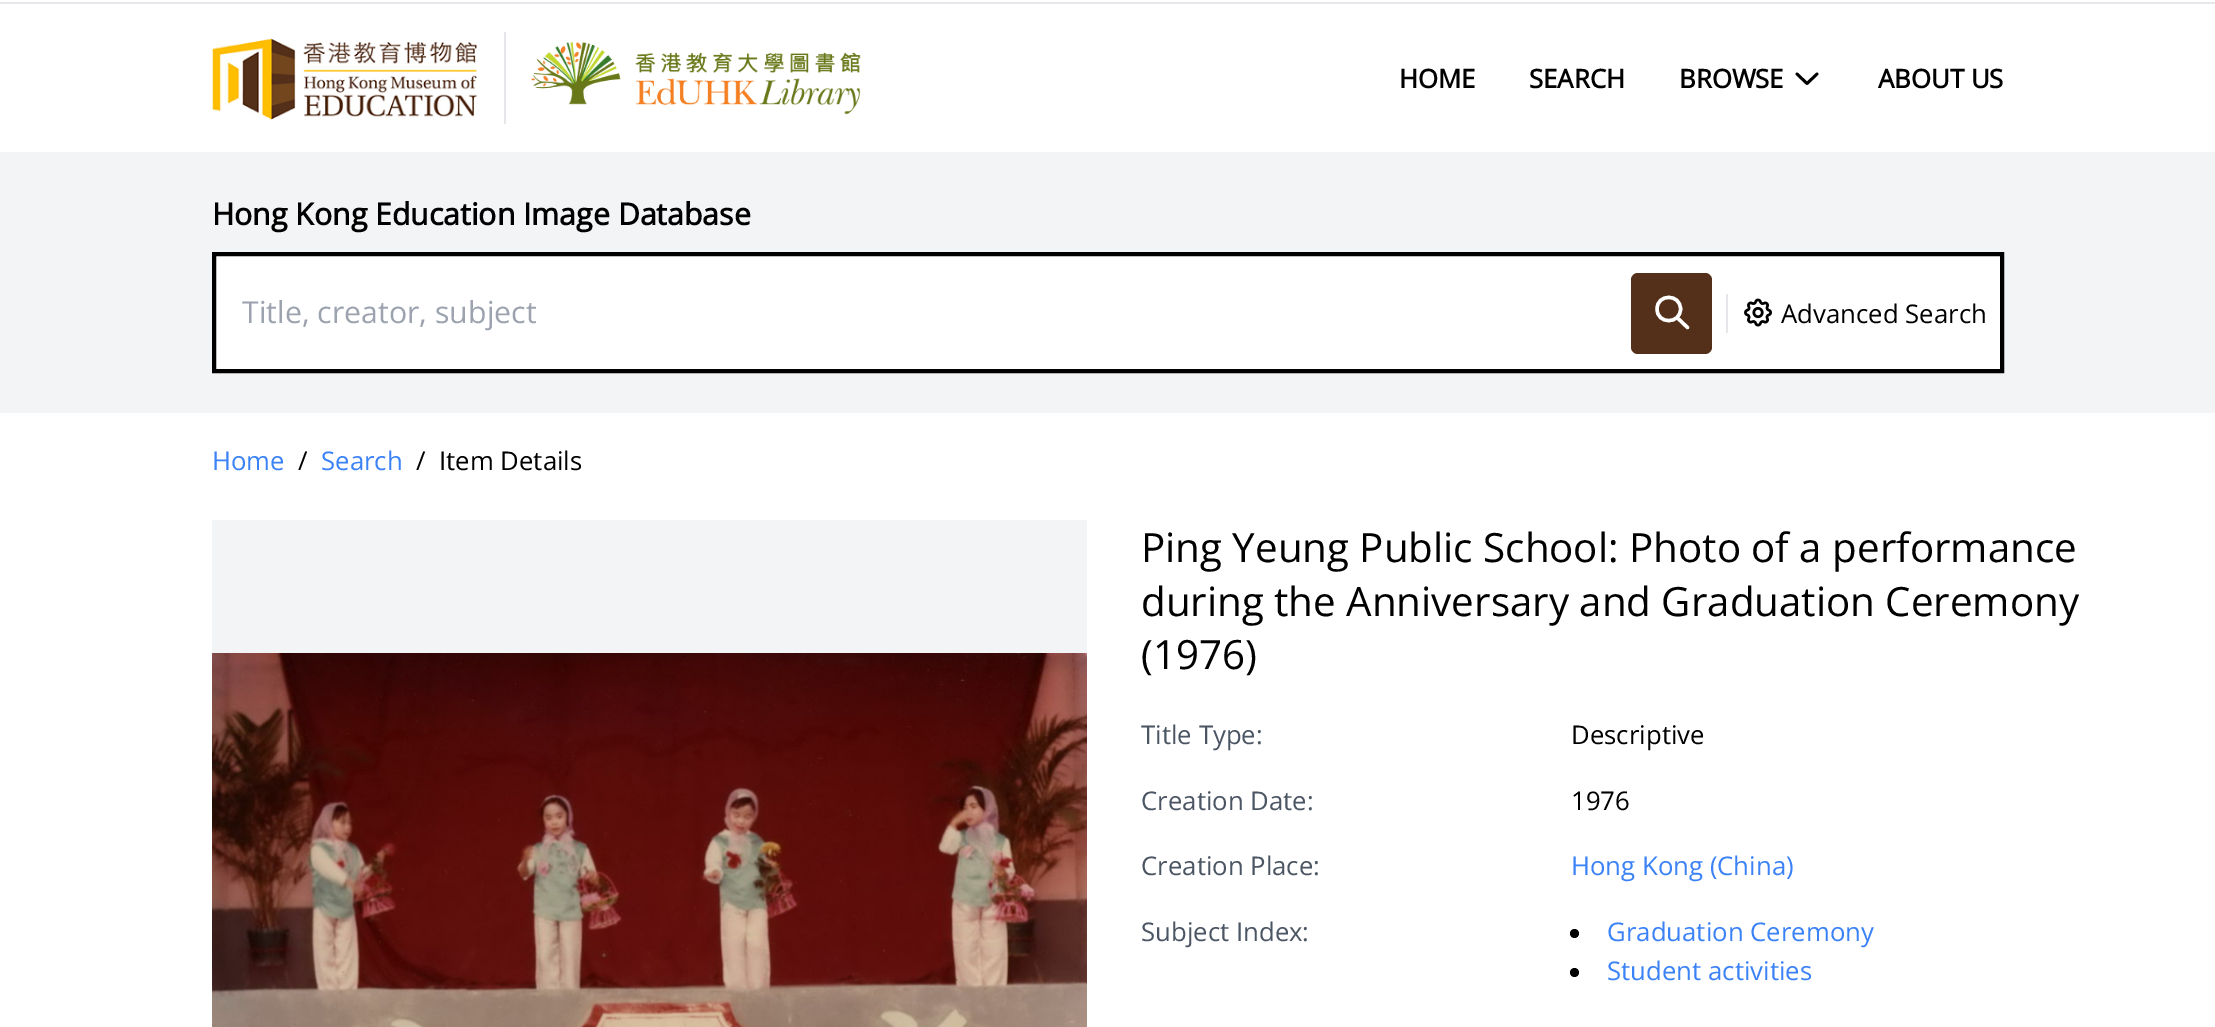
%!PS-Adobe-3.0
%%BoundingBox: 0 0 2215 1027
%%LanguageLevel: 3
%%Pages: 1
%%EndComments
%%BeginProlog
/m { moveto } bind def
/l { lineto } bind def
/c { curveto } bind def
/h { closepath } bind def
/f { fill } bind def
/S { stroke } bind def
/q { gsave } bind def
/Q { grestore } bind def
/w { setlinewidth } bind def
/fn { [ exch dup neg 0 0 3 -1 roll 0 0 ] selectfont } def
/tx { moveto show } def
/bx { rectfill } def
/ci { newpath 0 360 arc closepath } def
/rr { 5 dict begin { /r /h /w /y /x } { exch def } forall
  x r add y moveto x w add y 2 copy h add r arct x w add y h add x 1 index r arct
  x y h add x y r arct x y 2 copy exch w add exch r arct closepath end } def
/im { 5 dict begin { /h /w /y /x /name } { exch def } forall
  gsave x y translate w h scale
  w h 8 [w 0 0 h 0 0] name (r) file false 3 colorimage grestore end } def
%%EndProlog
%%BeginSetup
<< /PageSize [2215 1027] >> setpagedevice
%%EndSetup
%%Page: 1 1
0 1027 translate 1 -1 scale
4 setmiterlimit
1 setgray
0 0 2215 1027 bx
0.898 0.906 0.922 setrgbcolor
0 2 2215 2 bx
(image0.raw) 211 38 266 82 im
504 32 2 92 bx
(image1.raw) 531 42 330 73 im
/OpenSans-Bold 25.75 fn
0 setgray
(HOME) 1399 88 tx
(SEARCH) 1529 88 tx
(BROWSE) 1679 88 tx
2.8 w
1 setlinecap
1 setlinejoin
1817 74 m 1807 83.5 l 1797 74 l S
(ABOUT US) 1878 88 tx
0.953 0.957 0.965 setrgbcolor
0 152 2215 261 bx
/OpenSans-Bold 30.25 fn
0 setgray
(Hong Kong Education Image Database) 212 225 tx
1 setgray
214 254 m 2002 254 l 2002 371 l 214 371 l h q f Q
0 setgray
4 w
0 setlinecap
0 setlinejoin
S
/OpenSans-Regular 30.25 fn
0.612 0.639 0.686 setrgbcolor
(Title, creator, subject) 242 323 tx
0.329 0.184 0.102 setrgbcolor
1631 273 81 81 7 rr f
1 setgray
3.4 w
1 setlinecap
1 setlinejoin
1687.5 327.5 m 1677 317.5 l 1680.5 309 m 1680.5 324.5 1657 324.5 1657 309 c 1657 293.5 1680.5 293.5 1680.5 309 c h S
0.898 0.906 0.922 setrgbcolor
1726 294 2 39 bx
(image2.raw) 1744 298 28 29 im
/OpenSans-Regular 25.75 fn
0 setgray
(Advanced Search) 1781 323 tx
0.231 0.51 0.965 setrgbcolor
(Home) 212 470 tx
0 setgray
(/) 298 470 tx
0.231 0.51 0.965 setrgbcolor
(Search) 321 470 tx
0 setgray
(/) 416 470 tx
(Item Details) 439 470 tx
0.953 0.957 0.965 setrgbcolor
212 520 875 133 bx
(image3.raw) 212 653 875 374 im
/OpenSans-Regular 40.3 fn
0 setgray
(Ping Yeung Public School: Photo of a performance) 1141 562 tx
(during the Anniversary and Graduation Ceremony) 1141 616 tx
(\(1976\)) 1141 669 tx
/OpenSans-Regular 25.75 fn
0.294 0.333 0.388 setrgbcolor
(Title Type:) 1141 744 tx
0 setgray
(Descriptive) 1571 744 tx
0.294 0.333 0.388 setrgbcolor
(Creation Date:) 1141 810 tx
0 setgray
(1976) 1571 810 tx
0.294 0.333 0.388 setrgbcolor
(Creation Place:) 1141 875 tx
0.231 0.51 0.965 setrgbcolor
(Hong Kong \(China\)) 1571 875 tx
0.294 0.333 0.388 setrgbcolor
(Subject Index:) 1141 941 tx
0 setgray
1574.5 933.5 4.5 ci f
0.231 0.51 0.965 setrgbcolor
(Graduation Ceremony) 1607 941 tx
0 setgray
1574.5 972.5 4.5 ci f
0.231 0.51 0.965 setrgbcolor
(Student activities) 1607 980 tx
showpage
%%EOF
